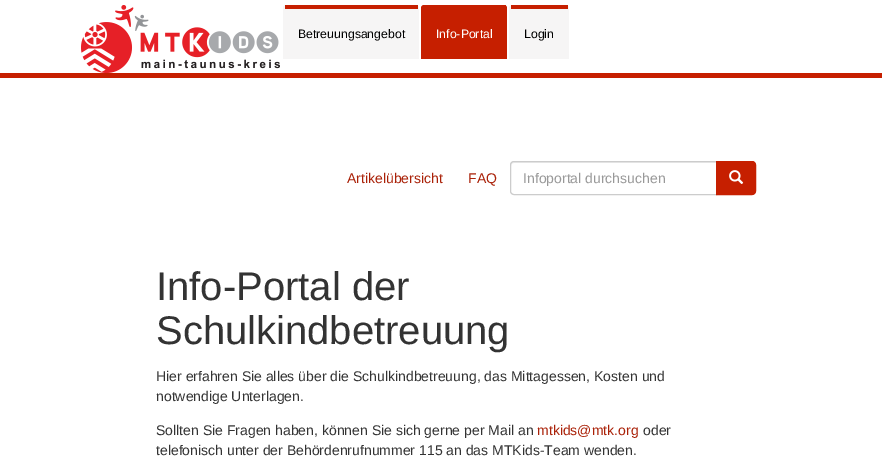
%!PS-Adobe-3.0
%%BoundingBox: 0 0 882 466
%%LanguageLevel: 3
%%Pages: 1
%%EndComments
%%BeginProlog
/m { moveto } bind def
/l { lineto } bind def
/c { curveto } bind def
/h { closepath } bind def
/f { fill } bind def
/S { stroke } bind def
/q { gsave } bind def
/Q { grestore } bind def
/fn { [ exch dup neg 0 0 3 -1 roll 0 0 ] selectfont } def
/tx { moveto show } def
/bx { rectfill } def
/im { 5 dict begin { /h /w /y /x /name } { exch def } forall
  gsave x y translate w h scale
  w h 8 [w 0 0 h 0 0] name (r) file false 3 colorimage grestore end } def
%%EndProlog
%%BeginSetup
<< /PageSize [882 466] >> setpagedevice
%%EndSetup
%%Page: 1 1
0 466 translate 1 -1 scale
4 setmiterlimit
1 setgray
0 0 882 466 bx
0.776 0.122 0 setrgbcolor
0 73 882 5 bx
(image0.raw) 81 5 199 68 im
0.965 0.961 0.961 setrgbcolor
286 5 m 416 5 l 417.5 5 419 6.5 419 8 c 419 59 l 283 59 l 283 8 l 283 6.5 284.5 5 286 5 c h f
0.776 0.122 0 setrgbcolor
285 5 133 4 bx
/LiberationSans-Regular 12.25 fn
0 setgray
(Betreuungsangebot) 298 38 tx
0.776 0.122 0 setrgbcolor
424 5 m 504 5 l 505.5 5 507 6.5 507 8 c 507 59 l 421 59 l 421 8 l 421 6.5 422.5 5 424 5 c h f
423 5 83 1 bx
1 setgray
(Info-Portal) 436 38 tx
0.965 0.961 0.961 setrgbcolor
512 5 m 566 5 l 567.5 5 569 6.5 569 8 c 569 59 l 509 59 l 509 8 l 509 6.5 510.5 5 512 5 c h f
0.776 0.122 0 setrgbcolor
511 5 57 4 bx
0 setgray
(Login) 524 38 tx
/LiberationSans-Regular 14 fn
0.667 0.129 0.031 setrgbcolor
(Artikelübersicht) 347 183 tx
(FAQ) 468 183 tx
0.925 setgray
514 163 m 716 163 l 716 162 l 513 162 l 511 163 511 164 511 166 c 511 164 512 163 514 163 c h f
0.8 setgray
514 161.5 m 716.5 161.5 l 716.5 194.5 l 514 194.5 l 512 194.5 510.5 193 510.5 191 c 510.5 165 l 510.5 163 512 161.5 514 161.5 c h S
0.6 setgray
(Infoportal durchsuchen) 523 183 tx
0.776 0.122 0 setrgbcolor
716.5 161.5 m 752 161.5 l 754 161.5 755.5 163 755.5 165 c 755.5 191 l 755.5 193 754 194.5 752 194.5 c 716.5 194.5 l h q f Q
S
(image1.raw) 729 170 15 14 im
/LiberationSans-Regular 40 fn
0.2 setgray
(Info-Portal der) 156 300 tx
(Schulkindbetreuung) 156 344 tx
/LiberationSans-Regular 14 fn
(Hier erfahren Sie alles über die Schulkindbetreuung, das Mittagessen, Kosten und) 156 381 tx
(notwendige Unterlagen.) 156 401 tx
(Sollten Sie Fragen haben, können Sie sich gerne per Mail an) 156 435 tx
0.667 0.129 0.031 setrgbcolor
(mtkids@mtk.org) 537 435 tx
0.2 setgray
(oder) 643 435 tx
(telefonisch unter der Behördenrufnummer 115 an das MTKids-Team wenden.) 156 455 tx
showpage
%%EOF
